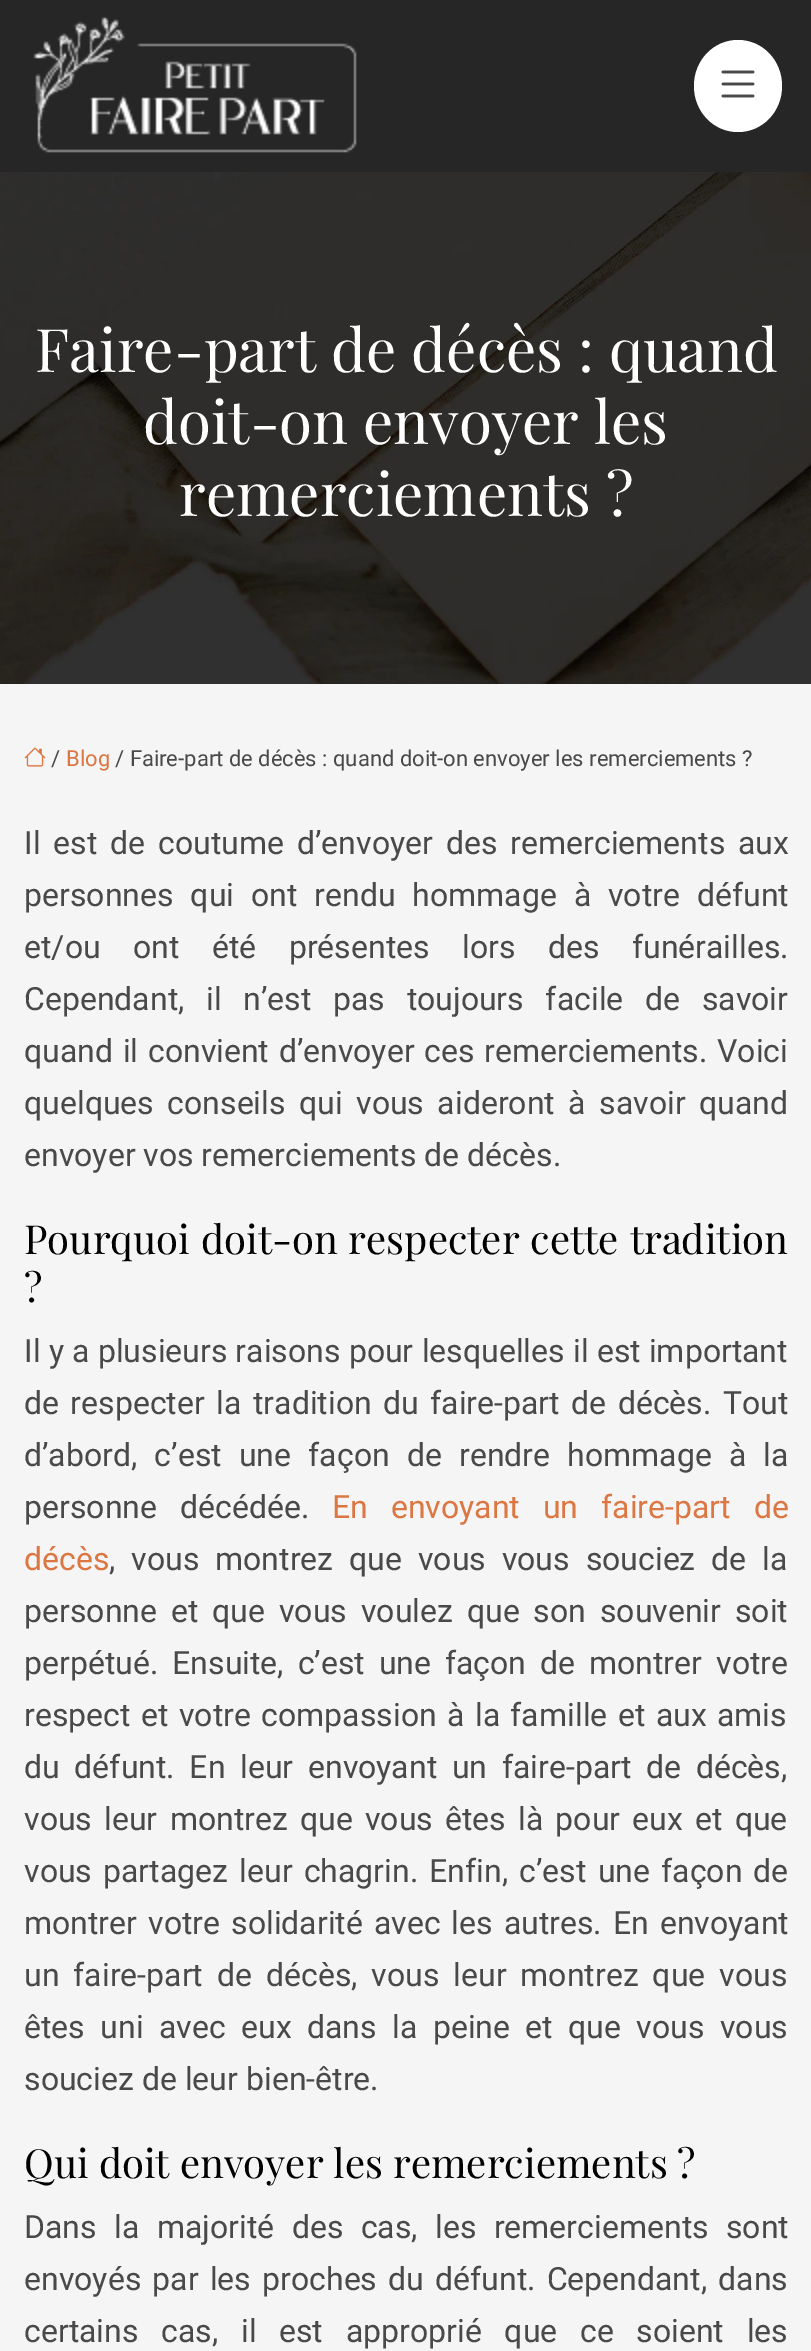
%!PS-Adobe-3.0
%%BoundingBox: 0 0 811 2351
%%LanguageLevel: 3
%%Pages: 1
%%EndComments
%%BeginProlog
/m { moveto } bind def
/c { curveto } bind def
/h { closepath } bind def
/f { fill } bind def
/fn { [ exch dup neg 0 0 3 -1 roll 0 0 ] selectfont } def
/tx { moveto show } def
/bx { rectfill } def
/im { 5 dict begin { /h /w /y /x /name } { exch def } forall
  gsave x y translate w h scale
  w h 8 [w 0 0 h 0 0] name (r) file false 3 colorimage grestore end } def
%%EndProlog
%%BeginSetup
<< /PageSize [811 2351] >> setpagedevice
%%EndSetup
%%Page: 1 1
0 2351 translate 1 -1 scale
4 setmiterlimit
0.961 setgray
0 0 811 2351 bx
0.149 setgray
0 0 811 172 bx
(image0.raw) 33 17 324 136 im
1 setgray
738 40 m 762.5 40 782 60.5 782 86 c 782 111.5 762.5 132 738 132 c 713.5 132 694 111.5 694 86 c 694 60.5 713.5 40 738 40 c h f
(image1.raw) 721 70 34 28 im
(image2.raw) 0 172 811 512 im
/PlayfairDisplay-Regular 60 fn
(Faire-part de décès : quand) 35 372 tx
(doit-on envoyer les) 143 444 tx
(remerciements ?) 179 516 tx
(image3.raw) 24 747 22 20 im
/Roboto-Regular 22 fn
0.286 setgray
(/) 51 766 tx
0.863 0.463 0.259 setrgbcolor
(Blog) 66 766 tx
0.286 setgray
(/ Faire-part de décès : quand doit-on envoyer les remerciements ?) 115 766 tx
/Roboto-Regular 32 fn
24 854 m 5 0 32 (Il est de coutume d’envoyer des remerciements aux) widthshow
24 906 m 9 0 32 (personnes qui ont rendu hommage à votre défunt) widthshow
24 958 m 24.5 0 32 (et/ou ont été présentes lors des funérailles.) widthshow
24 1010 m 13.75 0 32 (Cependant, il n’est pas toujours facile de savoir) widthshow
24 1062 m 1.75 0 32 (quand il convient d’envoyer ces remerciements. Voici) widthshow
24 1114 m 5.5 0 32 (quelques conseils qui vous aideront à savoir quand) widthshow
(envoyer vos remerciements de décès.) 24 1166 tx
/PlayfairDisplay-Regular 40 fn
0 setgray
24 1254 m 1 0 32 (Pourquoi doit-on respecter cette tradition) widthshow
(?) 24 1302 tx
/Roboto-Regular 32 fn
0.286 setgray
24 1362 m 0.25 0 32 (Il y a plusieurs raisons pour lesquelles il est important) widthshow
24 1414 m 3.5 0 32 (de respecter la tradition du faire-part de décès. Tout) widthshow
24 1466 m 9.25 0 32 (d’abord, c’est une façon de rendre hommage à la) widthshow
24 1518 m 15 0 32 (personne décédée.) widthshow
0.863 0.463 0.259 setrgbcolor
332 1518 m 15 0 32 (En envoyant un faire-part de) widthshow
(décès) 24 1570 tx
0.286 setgray
109 1570 m 8 0 32 (, vous montrez que vous vous souciez de la) widthshow
24 1622 m 6 0 32 (personne et que vous voulez que son souvenir soit) widthshow
24 1674 m 6 0 32 (perpétué. Ensuite, c’est une façon de montrer votre) widthshow
24 1726 m 2.5 0 32 (respect et votre compassion à la famille et aux amis) widthshow
24 1778 m 6.75 0 32 (du défunt. En leur envoyant un faire-part de décès,) widthshow
24 1830 m 4.25 0 32 (vous leur montrez que vous êtes là pour eux et que) widthshow
24 1882 m 3.25 0 32 (vous partagez leur chagrin. Enfin, c’est une façon de) widthshow
24 1934 m 3 0 32 (montrer votre solidarité avec les autres. En envoyant) widthshow
24 1986 m 6 0 32 (un faire-part de décès, vous leur montrez que vous) widthshow
24 2038 m 7.5 0 32 (êtes uni avec eux dans la peine et que vous vous) widthshow
(souciez de leur bien-être.) 24 2090 tx
/PlayfairDisplay-Regular 40 fn
0 setgray
(Qui doit envoyer les remerciements ?) 24 2178 tx
/Roboto-Regular 32 fn
0.286 setgray
24 2238 m 9.5 0 32 (Dans la majorité des cas, les remerciements sont) widthshow
24 2290 m 3.25 0 32 (envoyés par les proches du défunt. Cependant, dans) widthshow
24 2342 m 14.75 0 32 (certains cas, il est approprié que ce soient les) widthshow
showpage
%%EOF
